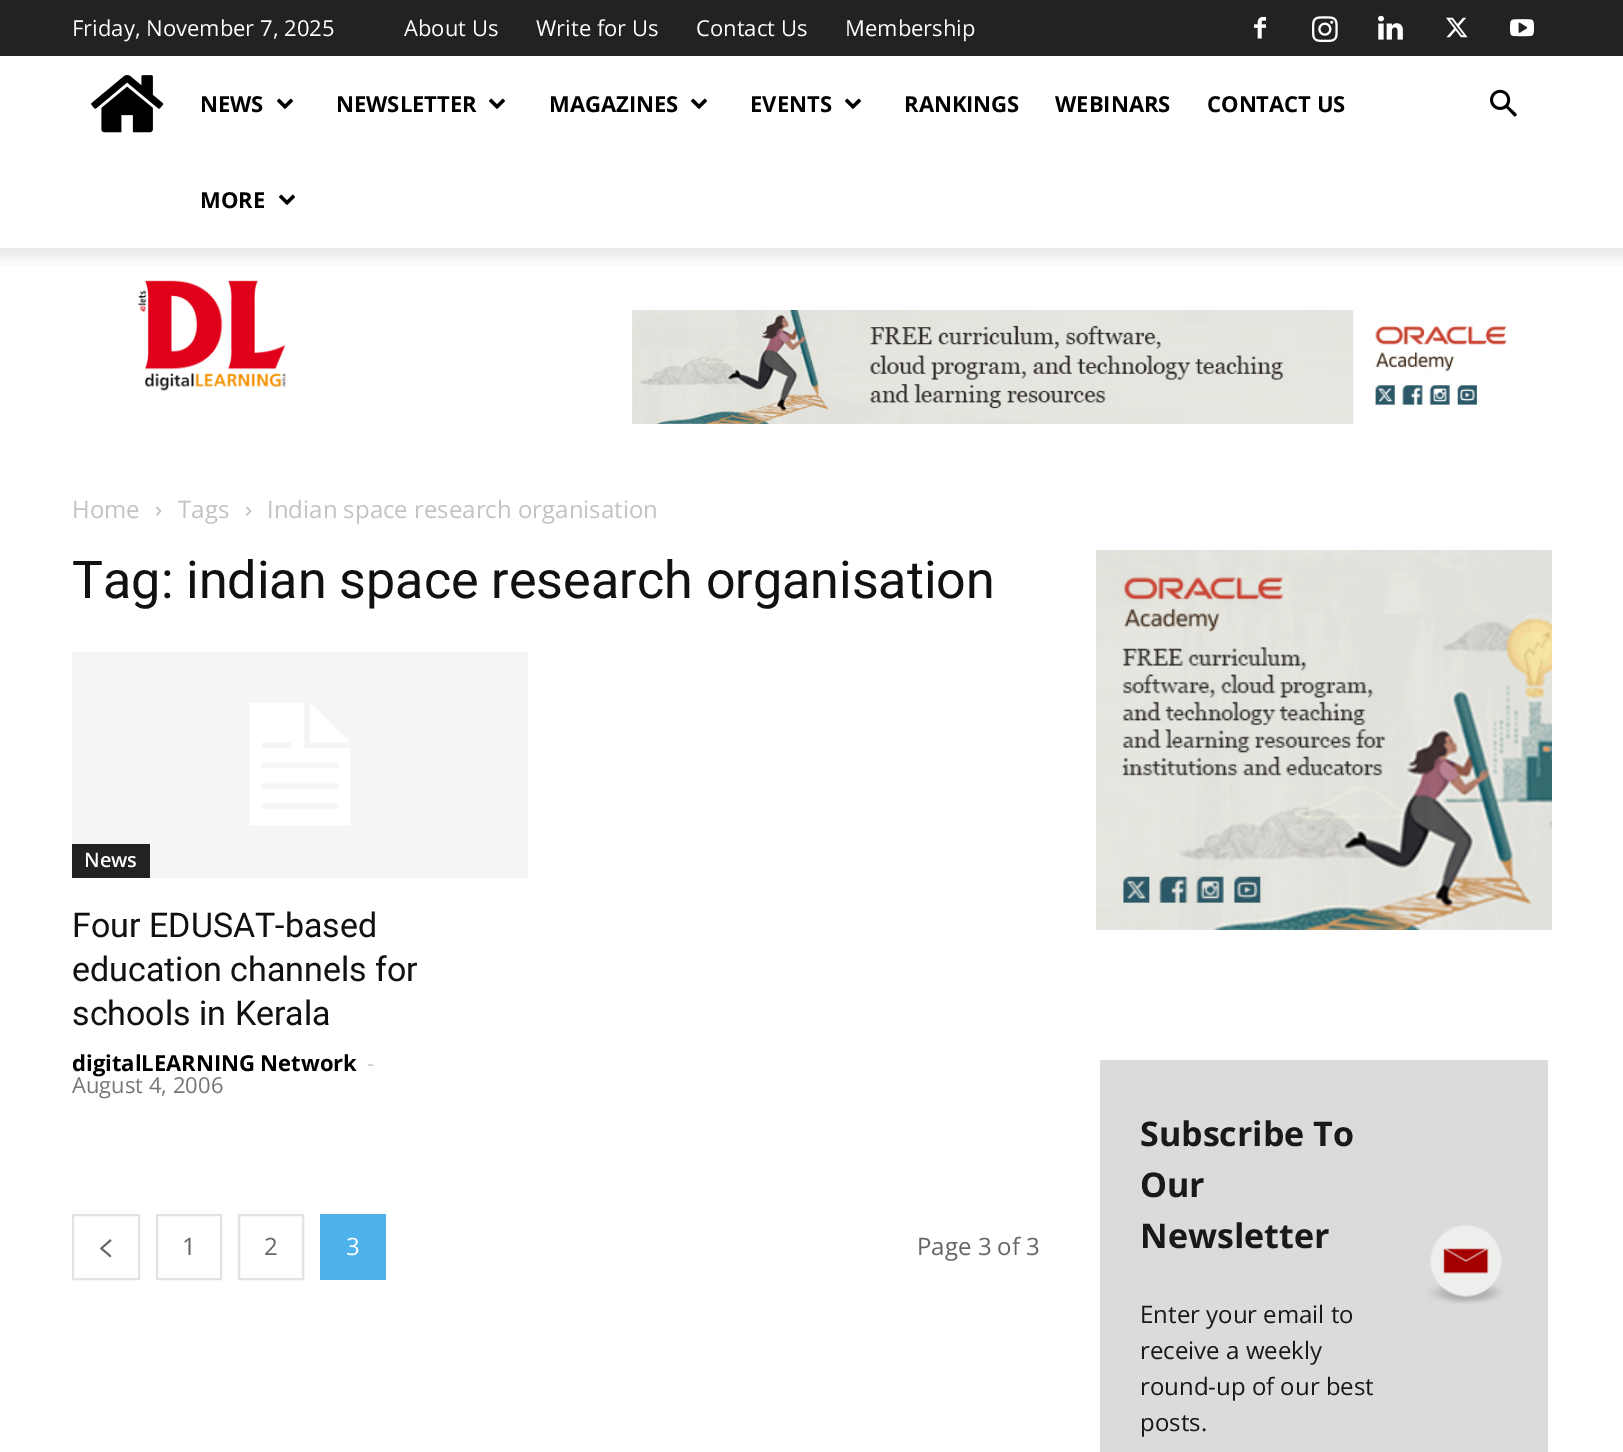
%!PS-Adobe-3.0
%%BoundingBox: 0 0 1623 1452
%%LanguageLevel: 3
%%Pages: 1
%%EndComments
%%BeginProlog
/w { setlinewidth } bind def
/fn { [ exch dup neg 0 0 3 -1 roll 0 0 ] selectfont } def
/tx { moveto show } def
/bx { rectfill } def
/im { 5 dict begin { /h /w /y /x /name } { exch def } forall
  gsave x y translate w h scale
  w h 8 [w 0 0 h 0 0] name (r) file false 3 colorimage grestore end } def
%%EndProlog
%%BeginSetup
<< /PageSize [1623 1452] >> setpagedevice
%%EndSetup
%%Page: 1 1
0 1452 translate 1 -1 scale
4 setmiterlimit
1 setgray
0 0 1623 1452 bx
0.133 setgray
0 0 1623 56 bx
/OpenSans-Regular 22 fn
1 setgray
(Friday, November 7, 2025) 72 36 tx
(About Us) 404 36 tx
(Write for Us) 536 36 tx
(Contact Us) 696 36 tx
(Membership) 845 36 tx
(image0.raw) 1254 16 12 23 im
(image1.raw) 1312 16 26 26 im
(image2.raw) 1378 15 25 25 im
(image3.raw) 1446 17 22 21 im
(image4.raw) 1510 19 24 18 im
(image5.raw) 91 75 73 58 im
/OpenSans-Bold 22 fn
0 setgray
(NEWS) 200 112 tx
(image6.raw) 277 98 16 11 im
(NEWSLETTER) 336 112 tx
(image6.raw) 489 98 16 11 im
(MAGAZINES) 549 112 tx
(image6.raw) 691 98 16 11 im
(EVENTS) 750 112 tx
(image6.raw) 845 98 16 11 im
(RANKINGS) 904 112 tx
(WEBINARS) 1055 112 tx
(CONTACT US) 1207 112 tx
(MORE) 200 208 tx
(image6.raw) 279 194 16 11 im
(image7.raw) 1490 89 27 28 im
(image8.raw) 0 248 1623 17 im
(image9.raw) 138 280 148 111 im
(image10.raw) 632 310 875 114 im
/OpenSans-Regular 24 fn
0.765 setgray
(Home) 72 518 tx
(image11.raw) 156 506 6 10 im
(Tags) 178 518 tx
(image11.raw) 246 506 6 10 im
(Indian space research organisation) 267 518 tx
/Roboto-Regular 52 fn
0.067 setgray
(Tag: indian space research organisation) 72 598 tx
(image12.raw) 72 652 456 226 im
0.133 setgray
72 844 78 34 bx
/OpenSans-SemiBold 20 fn
1 setgray
(News) 84 867 tx
/Roboto-Regular 34 fn
0.067 setgray
(Four EDUSAT-based) 72 937 tx
(education channels for) 72 981 tx
(schools in Kerala) 72 1025 tx
/OpenSans-Bold 22 fn
0 setgray
(digitalLEARNING Network) 72 1071 tx
/OpenSans-Regular 22 fn
0.8 setgray
(-) 367 1071 tx
0.463 setgray
(August 4, 2006) 72 1093 tx
0.89 setgray
2 w
73 1215 66 64 rectstroke
(image13.raw) 100 1239 12 19 im
157 1215 64 64 rectstroke
/OpenSans-Regular 24 fn
0.4 setgray
(1) 182 1255 tx
0.89 setgray
239 1215 64 64 rectstroke
0.4 setgray
(2) 264 1255 tx
0.302 0.698 0.925 setrgbcolor
320 1214 66 66 bx
1 setgray
(3) 346 1255 tx
0.4 setgray
(Page 3 of 3) 917 1255 tx
(image14.raw) 1096 550 456 380 im
0.863 0.859 0.859 setrgbcolor
1100 1060 448 392 bx
/OpenSans-Bold 34 fn
0.098 setgray
(Subscribe To) 1140 1146 tx
(Our) 1140 1197 tx
(Newsletter) 1140 1248 tx
/OpenSans-Regular 24 fn
(Enter your email to) 1140 1323 tx
(receive a weekly) 1140 1359 tx
(round-up of our best) 1140 1395 tx
(posts.) 1140 1431 tx
(image15.raw) 1427 1225 78 80 im
showpage
%%EOF
